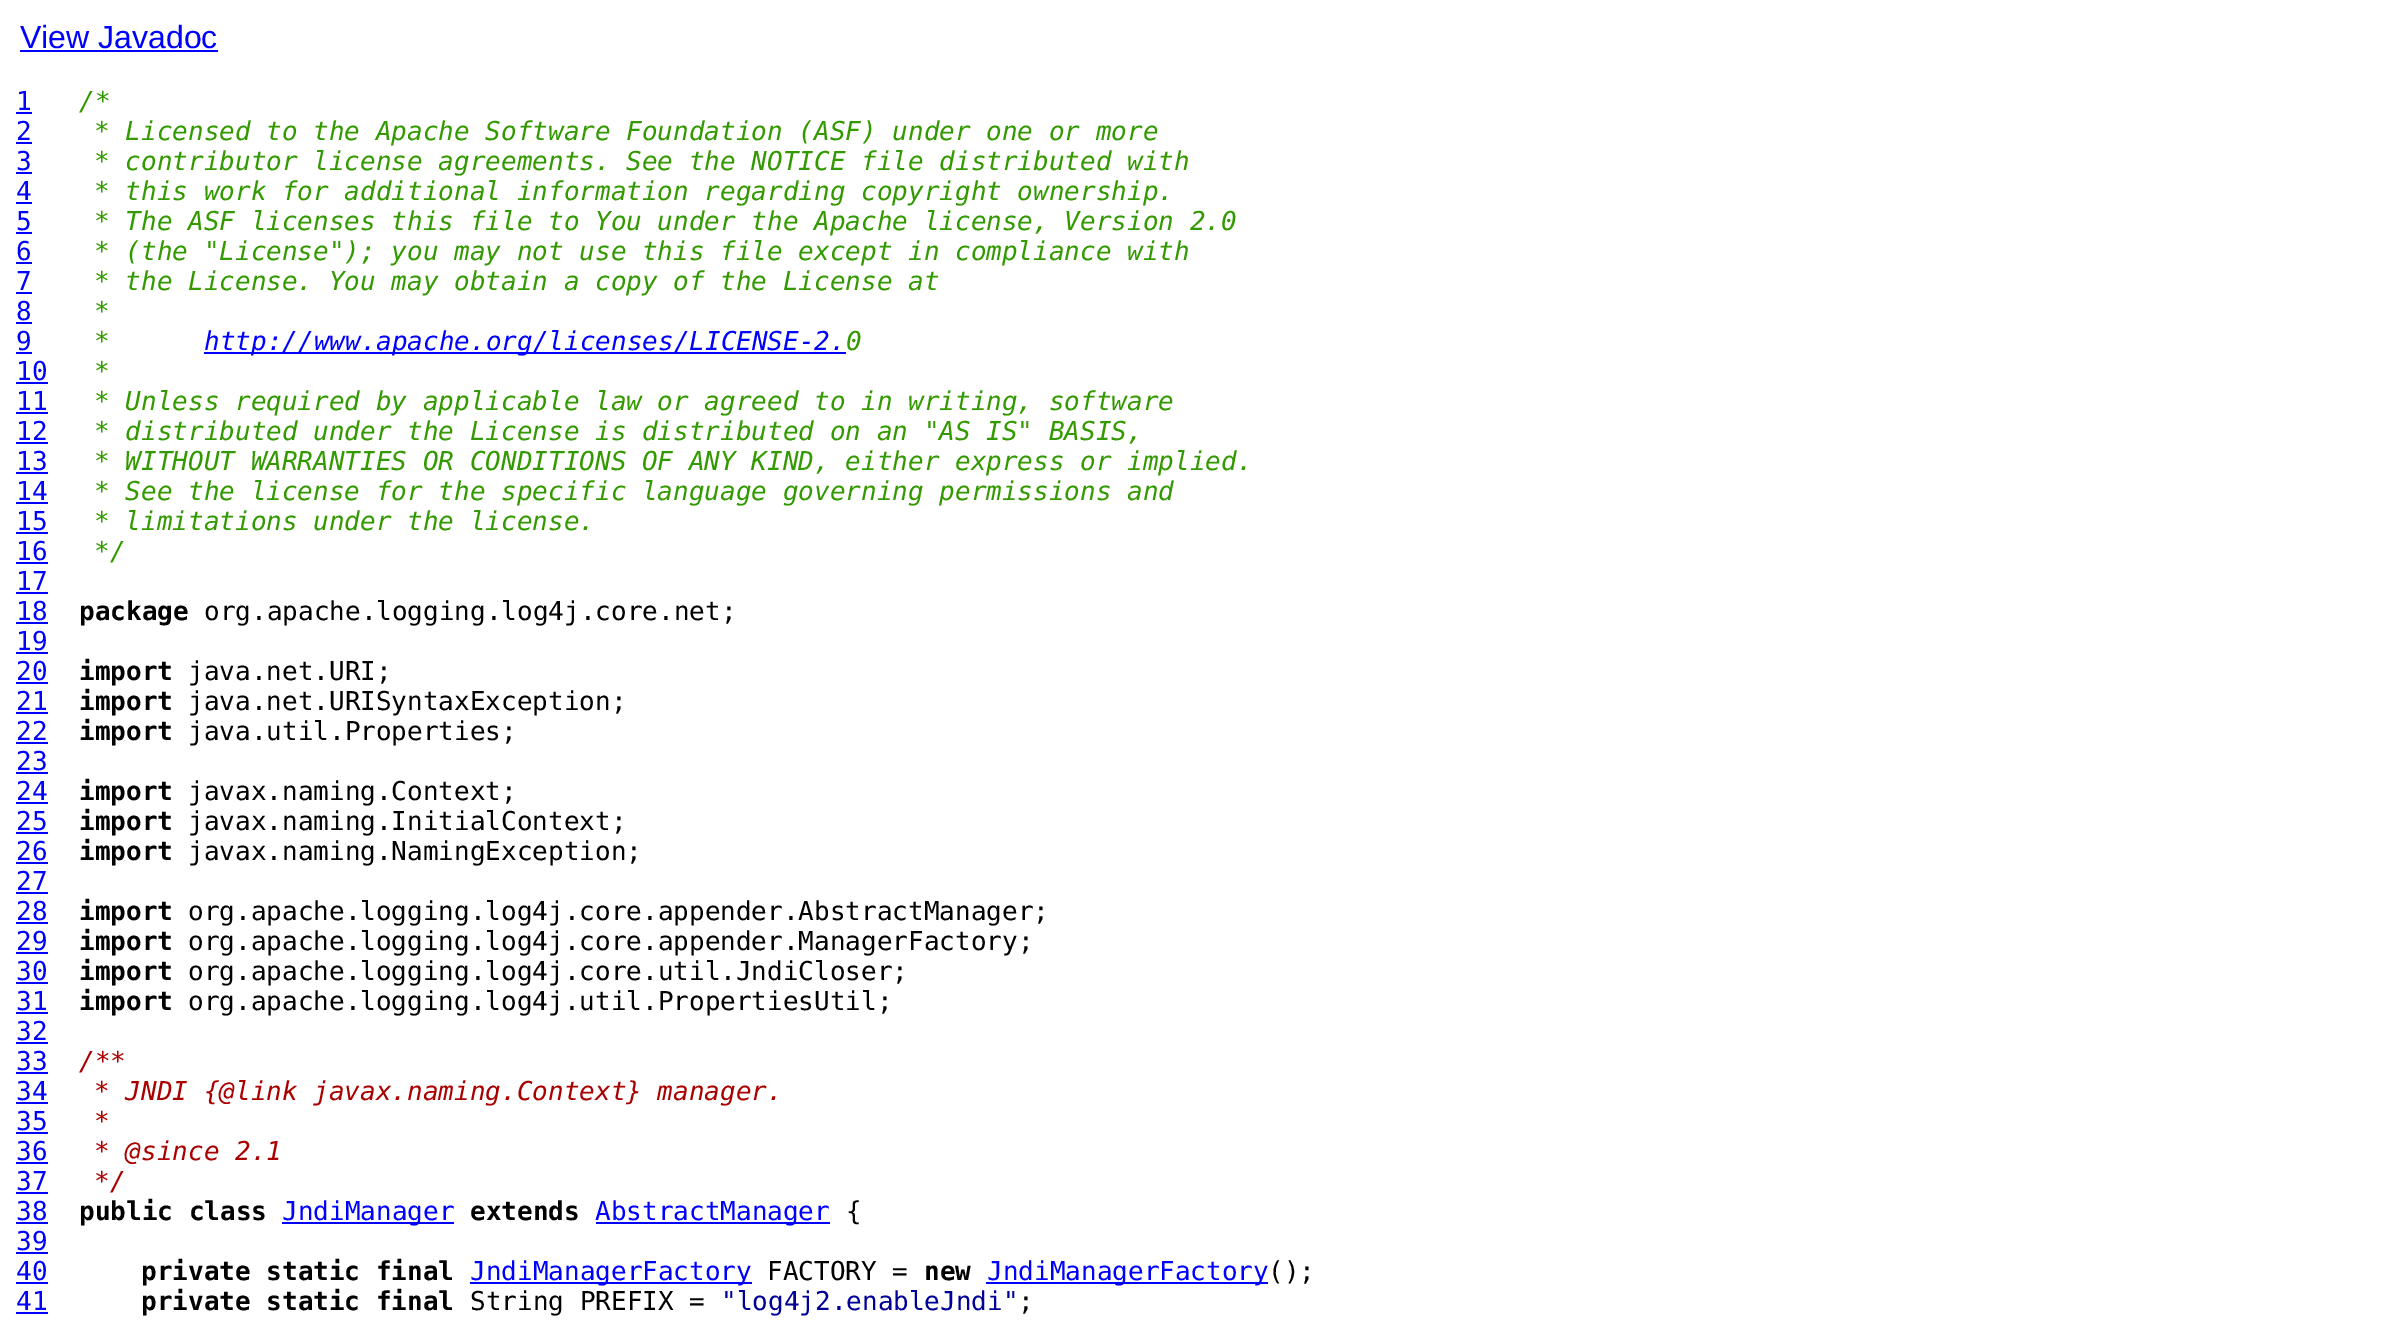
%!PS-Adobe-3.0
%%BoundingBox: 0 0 2388 1322
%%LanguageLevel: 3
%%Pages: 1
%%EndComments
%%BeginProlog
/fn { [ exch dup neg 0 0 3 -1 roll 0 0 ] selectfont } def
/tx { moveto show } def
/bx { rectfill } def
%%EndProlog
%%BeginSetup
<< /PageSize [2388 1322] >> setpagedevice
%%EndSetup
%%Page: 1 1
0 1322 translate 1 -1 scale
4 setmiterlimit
1 setgray
0 0 2388 1322 bx
/LiberationSans-Regular 32 fn
0 0 1 setrgbcolor
(View Javadoc) 20 48 tx
20 50 198 2 bx
/DejaVuSansMono-Regular 26 fn
(1) 16 110 tx
16 112 16 2 bx
/DejaVuSansMono-Italic 26 fn
0.2 0.6 0 setrgbcolor
(/*) 79 110 tx
/DejaVuSansMono-Regular 26 fn
0 0 1 setrgbcolor
(2) 16 140 tx
16 142 16 2 bx
/DejaVuSansMono-Italic 26 fn
0.2 0.6 0 setrgbcolor
(* Licensed to the Apache Software Foundation \(ASF\) under one or more) 94 140 tx
/DejaVuSansMono-Regular 26 fn
0 0 1 setrgbcolor
(3) 16 170 tx
16 172 16 2 bx
/DejaVuSansMono-Italic 26 fn
0.2 0.6 0 setrgbcolor
(* contributor license agreements. See the NOTICE file distributed with) 94 170 tx
/DejaVuSansMono-Regular 26 fn
0 0 1 setrgbcolor
(4) 16 200 tx
16 202 16 2 bx
/DejaVuSansMono-Italic 26 fn
0.2 0.6 0 setrgbcolor
(* this work for additional information regarding copyright ownership.) 94 200 tx
/DejaVuSansMono-Regular 26 fn
0 0 1 setrgbcolor
(5) 16 230 tx
16 232 16 2 bx
/DejaVuSansMono-Italic 26 fn
0.2 0.6 0 setrgbcolor
(* The ASF licenses this file to You under the Apache license, Version 2.0) 94 230 tx
/DejaVuSansMono-Regular 26 fn
0 0 1 setrgbcolor
(6) 16 260 tx
16 262 16 2 bx
/DejaVuSansMono-Italic 26 fn
0.2 0.6 0 setrgbcolor
(* \(the "License"\); you may not use this file except in compliance with) 94 260 tx
/DejaVuSansMono-Regular 26 fn
0 0 1 setrgbcolor
(7) 16 290 tx
16 292 16 2 bx
/DejaVuSansMono-Italic 26 fn
0.2 0.6 0 setrgbcolor
(* the License. You may obtain a copy of the License at) 94 290 tx
/DejaVuSansMono-Regular 26 fn
0 0 1 setrgbcolor
(8) 16 320 tx
16 322 16 2 bx
/DejaVuSansMono-Italic 26 fn
0.2 0.6 0 setrgbcolor
(*) 94 320 tx
/DejaVuSansMono-Regular 26 fn
0 0 1 setrgbcolor
(9) 16 350 tx
16 352 16 2 bx
/DejaVuSansMono-Italic 26 fn
0.2 0.6 0 setrgbcolor
(*) 94 350 tx
0 0 1 setrgbcolor
204 352 642 2 bx
(http://www.apache.org/licenses/LICENSE-2.) 204 350 tx
0.2 0.6 0 setrgbcolor
(0) 846 350 tx
/DejaVuSansMono-Regular 26 fn
0 0 1 setrgbcolor
(10) 16 380 tx
16 382 32 2 bx
/DejaVuSansMono-Italic 26 fn
0.2 0.6 0 setrgbcolor
(*) 94 380 tx
/DejaVuSansMono-Regular 26 fn
0 0 1 setrgbcolor
(11) 16 410 tx
16 412 32 2 bx
/DejaVuSansMono-Italic 26 fn
0.2 0.6 0 setrgbcolor
(* Unless required by applicable law or agreed to in writing, software) 94 410 tx
/DejaVuSansMono-Regular 26 fn
0 0 1 setrgbcolor
(12) 16 440 tx
16 442 32 2 bx
/DejaVuSansMono-Italic 26 fn
0.2 0.6 0 setrgbcolor
(* distributed under the License is distributed on an "AS IS" BASIS,) 94 440 tx
/DejaVuSansMono-Regular 26 fn
0 0 1 setrgbcolor
(13) 16 470 tx
16 472 32 2 bx
/DejaVuSansMono-Italic 26 fn
0.2 0.6 0 setrgbcolor
(* WITHOUT WARRANTIES OR CONDITIONS OF ANY KIND, either express or implied.) 94 470 tx
/DejaVuSansMono-Regular 26 fn
0 0 1 setrgbcolor
(14) 16 500 tx
16 502 32 2 bx
/DejaVuSansMono-Italic 26 fn
0.2 0.6 0 setrgbcolor
(* See the license for the specific language governing permissions and) 94 500 tx
/DejaVuSansMono-Regular 26 fn
0 0 1 setrgbcolor
(15) 16 530 tx
16 532 32 2 bx
/DejaVuSansMono-Italic 26 fn
0.2 0.6 0 setrgbcolor
(* limitations under the license.) 94 530 tx
/DejaVuSansMono-Regular 26 fn
0 0 1 setrgbcolor
(16) 16 560 tx
16 562 32 2 bx
/DejaVuSansMono-Italic 26 fn
0.2 0.6 0 setrgbcolor
(*/) 94 560 tx
/DejaVuSansMono-Regular 26 fn
0 0 1 setrgbcolor
(17) 16 590 tx
16 592 32 2 bx
(18) 16 620 tx
16 622 32 2 bx
/DejaVuSansMono-Bold 26 fn
0 setgray
(package) 79 620 tx
/DejaVuSansMono-Regular 26 fn
(org.apache.logging.log4j.core.net;) 204 620 tx
0 0 1 setrgbcolor
(19) 16 650 tx
16 652 32 2 bx
(20) 16 680 tx
16 682 32 2 bx
/DejaVuSansMono-Bold 26 fn
0 setgray
(import) 79 680 tx
/DejaVuSansMono-Regular 26 fn
(java.net.URI;) 188 680 tx
0 0 1 setrgbcolor
(21) 16 710 tx
16 712 32 2 bx
/DejaVuSansMono-Bold 26 fn
0 setgray
(import) 79 710 tx
/DejaVuSansMono-Regular 26 fn
(java.net.URISyntaxException;) 188 710 tx
0 0 1 setrgbcolor
(22) 16 740 tx
16 742 32 2 bx
/DejaVuSansMono-Bold 26 fn
0 setgray
(import) 79 740 tx
/DejaVuSansMono-Regular 26 fn
(java.util.Properties;) 188 740 tx
0 0 1 setrgbcolor
(23) 16 770 tx
16 772 32 2 bx
(24) 16 800 tx
16 802 32 2 bx
/DejaVuSansMono-Bold 26 fn
0 setgray
(import) 79 800 tx
/DejaVuSansMono-Regular 26 fn
(javax.naming.Context;) 188 800 tx
0 0 1 setrgbcolor
(25) 16 830 tx
16 832 32 2 bx
/DejaVuSansMono-Bold 26 fn
0 setgray
(import) 79 830 tx
/DejaVuSansMono-Regular 26 fn
(javax.naming.InitialContext;) 188 830 tx
0 0 1 setrgbcolor
(26) 16 860 tx
16 862 32 2 bx
/DejaVuSansMono-Bold 26 fn
0 setgray
(import) 79 860 tx
/DejaVuSansMono-Regular 26 fn
(javax.naming.NamingException;) 188 860 tx
0 0 1 setrgbcolor
(27) 16 890 tx
16 892 32 2 bx
(28) 16 920 tx
16 922 32 2 bx
/DejaVuSansMono-Bold 26 fn
0 setgray
(import) 79 920 tx
/DejaVuSansMono-Regular 26 fn
(org.apache.logging.log4j.core.appender.AbstractManager;) 188 920 tx
0 0 1 setrgbcolor
(29) 16 950 tx
16 952 32 2 bx
/DejaVuSansMono-Bold 26 fn
0 setgray
(import) 79 950 tx
/DejaVuSansMono-Regular 26 fn
(org.apache.logging.log4j.core.appender.ManagerFactory;) 188 950 tx
0 0 1 setrgbcolor
(30) 16 980 tx
16 982 32 2 bx
/DejaVuSansMono-Bold 26 fn
0 setgray
(import) 79 980 tx
/DejaVuSansMono-Regular 26 fn
(org.apache.logging.log4j.core.util.JndiCloser;) 188 980 tx
0 0 1 setrgbcolor
(31) 16 1010 tx
16 1012 32 2 bx
/DejaVuSansMono-Bold 26 fn
0 setgray
(import) 79 1010 tx
/DejaVuSansMono-Regular 26 fn
(org.apache.logging.log4j.util.PropertiesUtil;) 188 1010 tx
0 0 1 setrgbcolor
(32) 16 1040 tx
16 1042 32 2 bx
(33) 16 1070 tx
16 1072 32 2 bx
/DejaVuSansMono-Italic 26 fn
0.667 0 0 setrgbcolor
(/**) 79 1070 tx
/DejaVuSansMono-Regular 26 fn
0 0 1 setrgbcolor
(34) 16 1100 tx
16 1102 32 2 bx
/DejaVuSansMono-Italic 26 fn
0.667 0 0 setrgbcolor
(* JNDI {@link javax.naming.Context} manager.) 94 1100 tx
/DejaVuSansMono-Regular 26 fn
0 0 1 setrgbcolor
(35) 16 1130 tx
16 1132 32 2 bx
/DejaVuSansMono-Italic 26 fn
0.667 0 0 setrgbcolor
(*) 94 1130 tx
/DejaVuSansMono-Regular 26 fn
0 0 1 setrgbcolor
(36) 16 1160 tx
16 1162 32 2 bx
/DejaVuSansMono-Italic 26 fn
0.667 0 0 setrgbcolor
(* @since 2.1) 94 1160 tx
/DejaVuSansMono-Regular 26 fn
0 0 1 setrgbcolor
(37) 16 1190 tx
16 1192 32 2 bx
/DejaVuSansMono-Italic 26 fn
0.667 0 0 setrgbcolor
(*/) 94 1190 tx
/DejaVuSansMono-Regular 26 fn
0 0 1 setrgbcolor
(38) 16 1220 tx
16 1222 32 2 bx
/DejaVuSansMono-Bold 26 fn
0 setgray
(public class) 79 1220 tx
0 0 1 setrgbcolor
282 1222 172 2 bx
/DejaVuSansMono-Regular 26 fn
(JndiManager) 282 1220 tx
/DejaVuSansMono-Bold 26 fn
0 setgray
(extends) 470 1220 tx
0 0 1 setrgbcolor
596 1222 234 2 bx
/DejaVuSansMono-Regular 26 fn
(AbstractManager) 595 1220 tx
0 setgray
({) 846 1220 tx
0 0 1 setrgbcolor
(39) 16 1250 tx
16 1252 32 2 bx
(40) 16 1280 tx
16 1282 32 2 bx
/DejaVuSansMono-Bold 26 fn
0 setgray
(private static final) 141 1280 tx
0 0 1 setrgbcolor
470 1282 282 2 bx
/DejaVuSansMono-Regular 26 fn
(JndiManagerFactory) 470 1280 tx
0 setgray
(FACTORY =) 767 1280 tx
/DejaVuSansMono-Bold 26 fn
(new) 924 1280 tx
0 0 1 setrgbcolor
986 1282 282 2 bx
/DejaVuSansMono-Regular 26 fn
(JndiManagerFactory) 987 1280 tx
0 setgray
(\(\);) 1268 1280 tx
0 0 1 setrgbcolor
(41) 16 1310 tx
16 1312 32 2 bx
/DejaVuSansMono-Bold 26 fn
0 setgray
(private static final) 141 1310 tx
/DejaVuSansMono-Regular 26 fn
(String PREFIX =) 470 1310 tx
0 0 0.6 setrgbcolor
("log4j2.enableJndi") 721 1310 tx
0 setgray
(;) 1018 1310 tx
showpage
%%EOF
